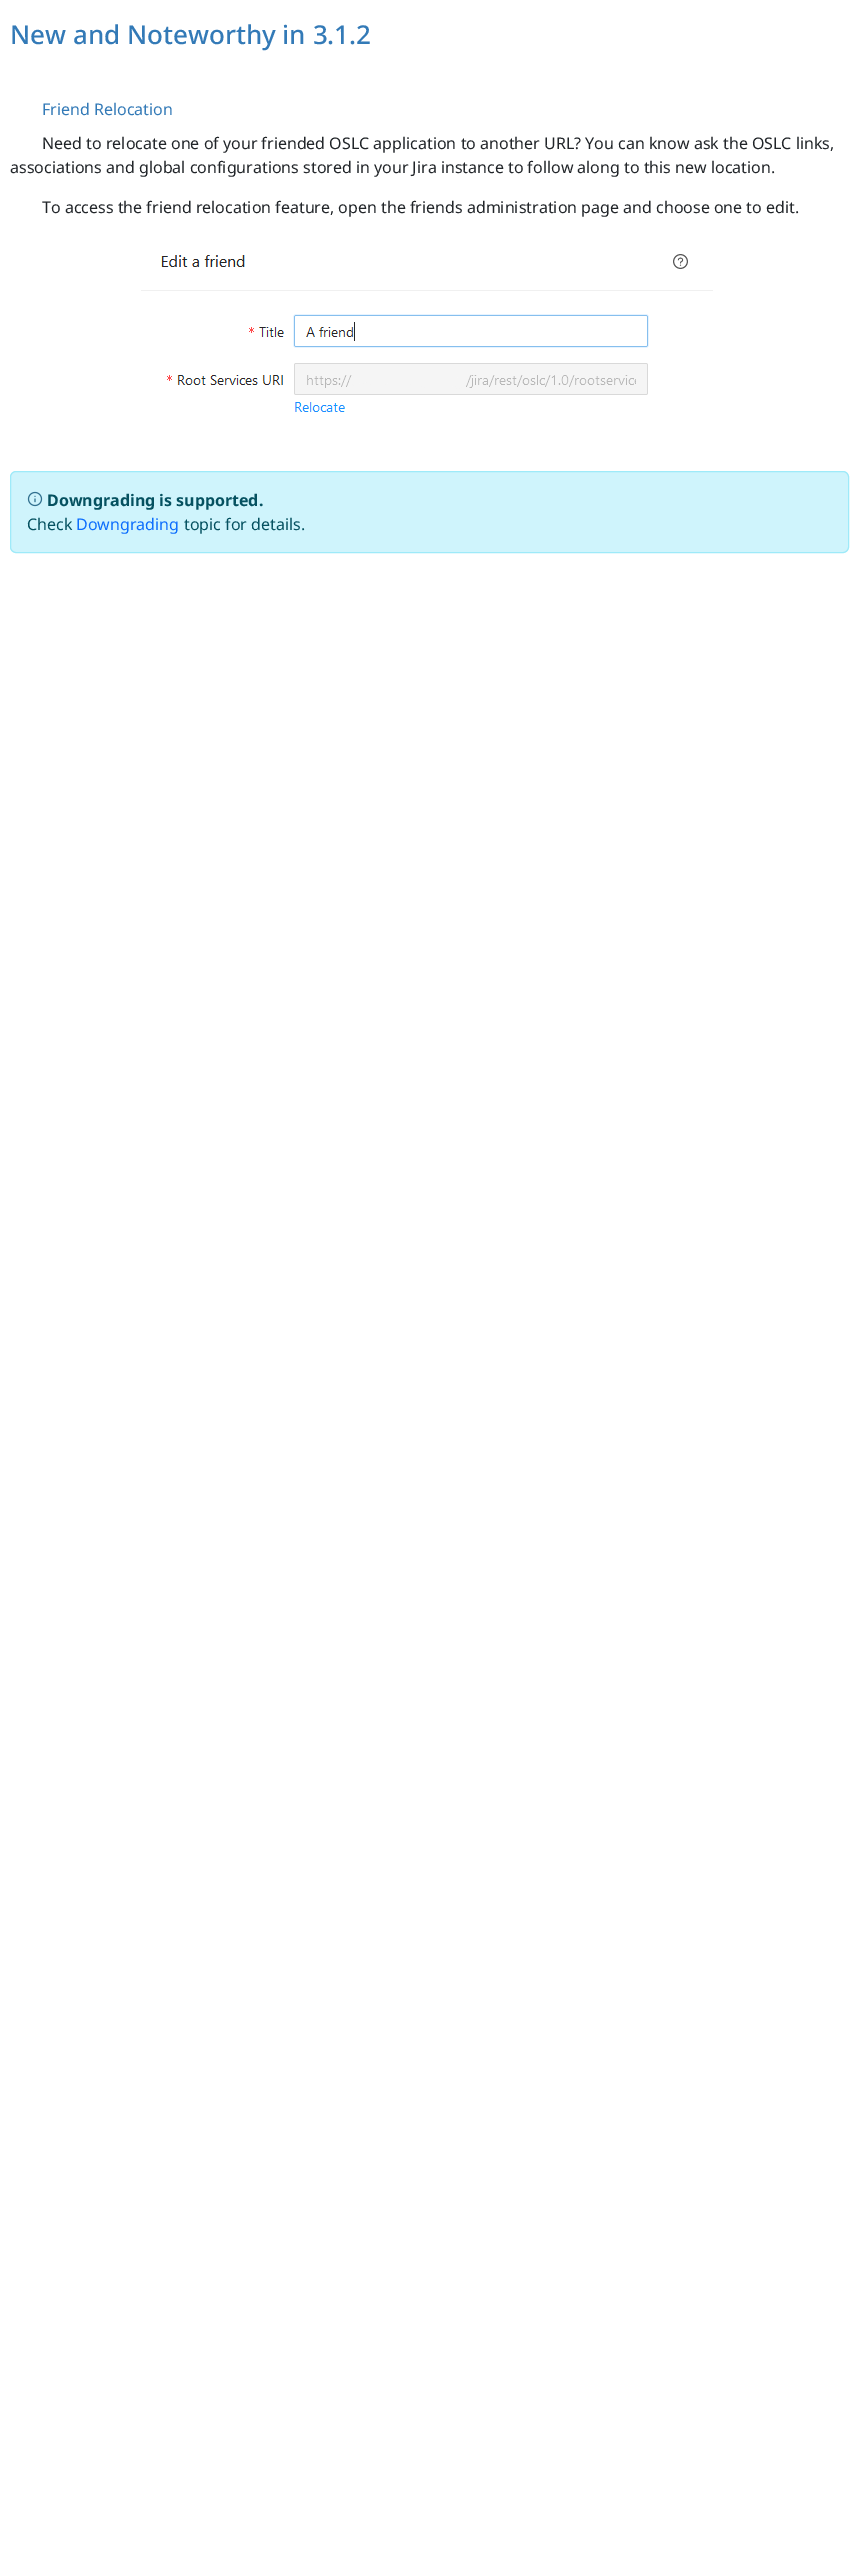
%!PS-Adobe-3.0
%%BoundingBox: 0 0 859 2551
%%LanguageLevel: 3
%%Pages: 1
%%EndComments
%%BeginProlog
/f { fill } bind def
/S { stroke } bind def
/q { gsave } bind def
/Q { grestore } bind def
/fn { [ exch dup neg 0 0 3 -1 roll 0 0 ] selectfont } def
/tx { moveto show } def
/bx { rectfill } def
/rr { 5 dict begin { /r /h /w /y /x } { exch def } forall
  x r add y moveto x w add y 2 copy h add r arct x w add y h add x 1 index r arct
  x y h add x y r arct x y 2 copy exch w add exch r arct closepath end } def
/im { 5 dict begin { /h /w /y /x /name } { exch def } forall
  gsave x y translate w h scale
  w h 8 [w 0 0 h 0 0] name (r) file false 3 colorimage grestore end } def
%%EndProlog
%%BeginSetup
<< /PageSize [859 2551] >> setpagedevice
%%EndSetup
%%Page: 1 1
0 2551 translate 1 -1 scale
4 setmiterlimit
1 setgray
0 0 859 2551 bx
/NotoSans-Medium 26 fn
0.2 0.478 0.718 setrgbcolor
(New and Noteworthy in 3.1.2) 10 44 tx
/NotoSans-Regular 16 fn
(Friend Relocation) 42 115 tx
0.129 0.145 0.161 setrgbcolor
(Need to relocate one of your friended OSLC application to another URL? You can know ask the OSLC links,) 42 149 tx
(associations and global configurations stored in your Jira instance to follow along to this new location.) 10 173 tx
(To access the friend relocation feature, open the friends administration page and choose one to edit.) 42 213 tx
(image0.raw) 141 254 572 158 im
0.812 0.957 0.988 setrgbcolor
10.5 471.5 838 81 5.5 rr q f Q
0.62 0.918 0.976 setrgbcolor
S
(image1.raw) 27 491 16 16 im
/NotoSans-Bold 16 fn
0.02 0.318 0.376 setrgbcolor
(Downgrading is supported.) 47 506 tx
/NotoSans-Regular 16 fn
(Check) 27 530 tx
0.051 0.431 0.992 setrgbcolor
(Downgrading) 76 530 tx
0.02 0.318 0.376 setrgbcolor
(topic for details.) 184 530 tx
showpage
%%EOF
